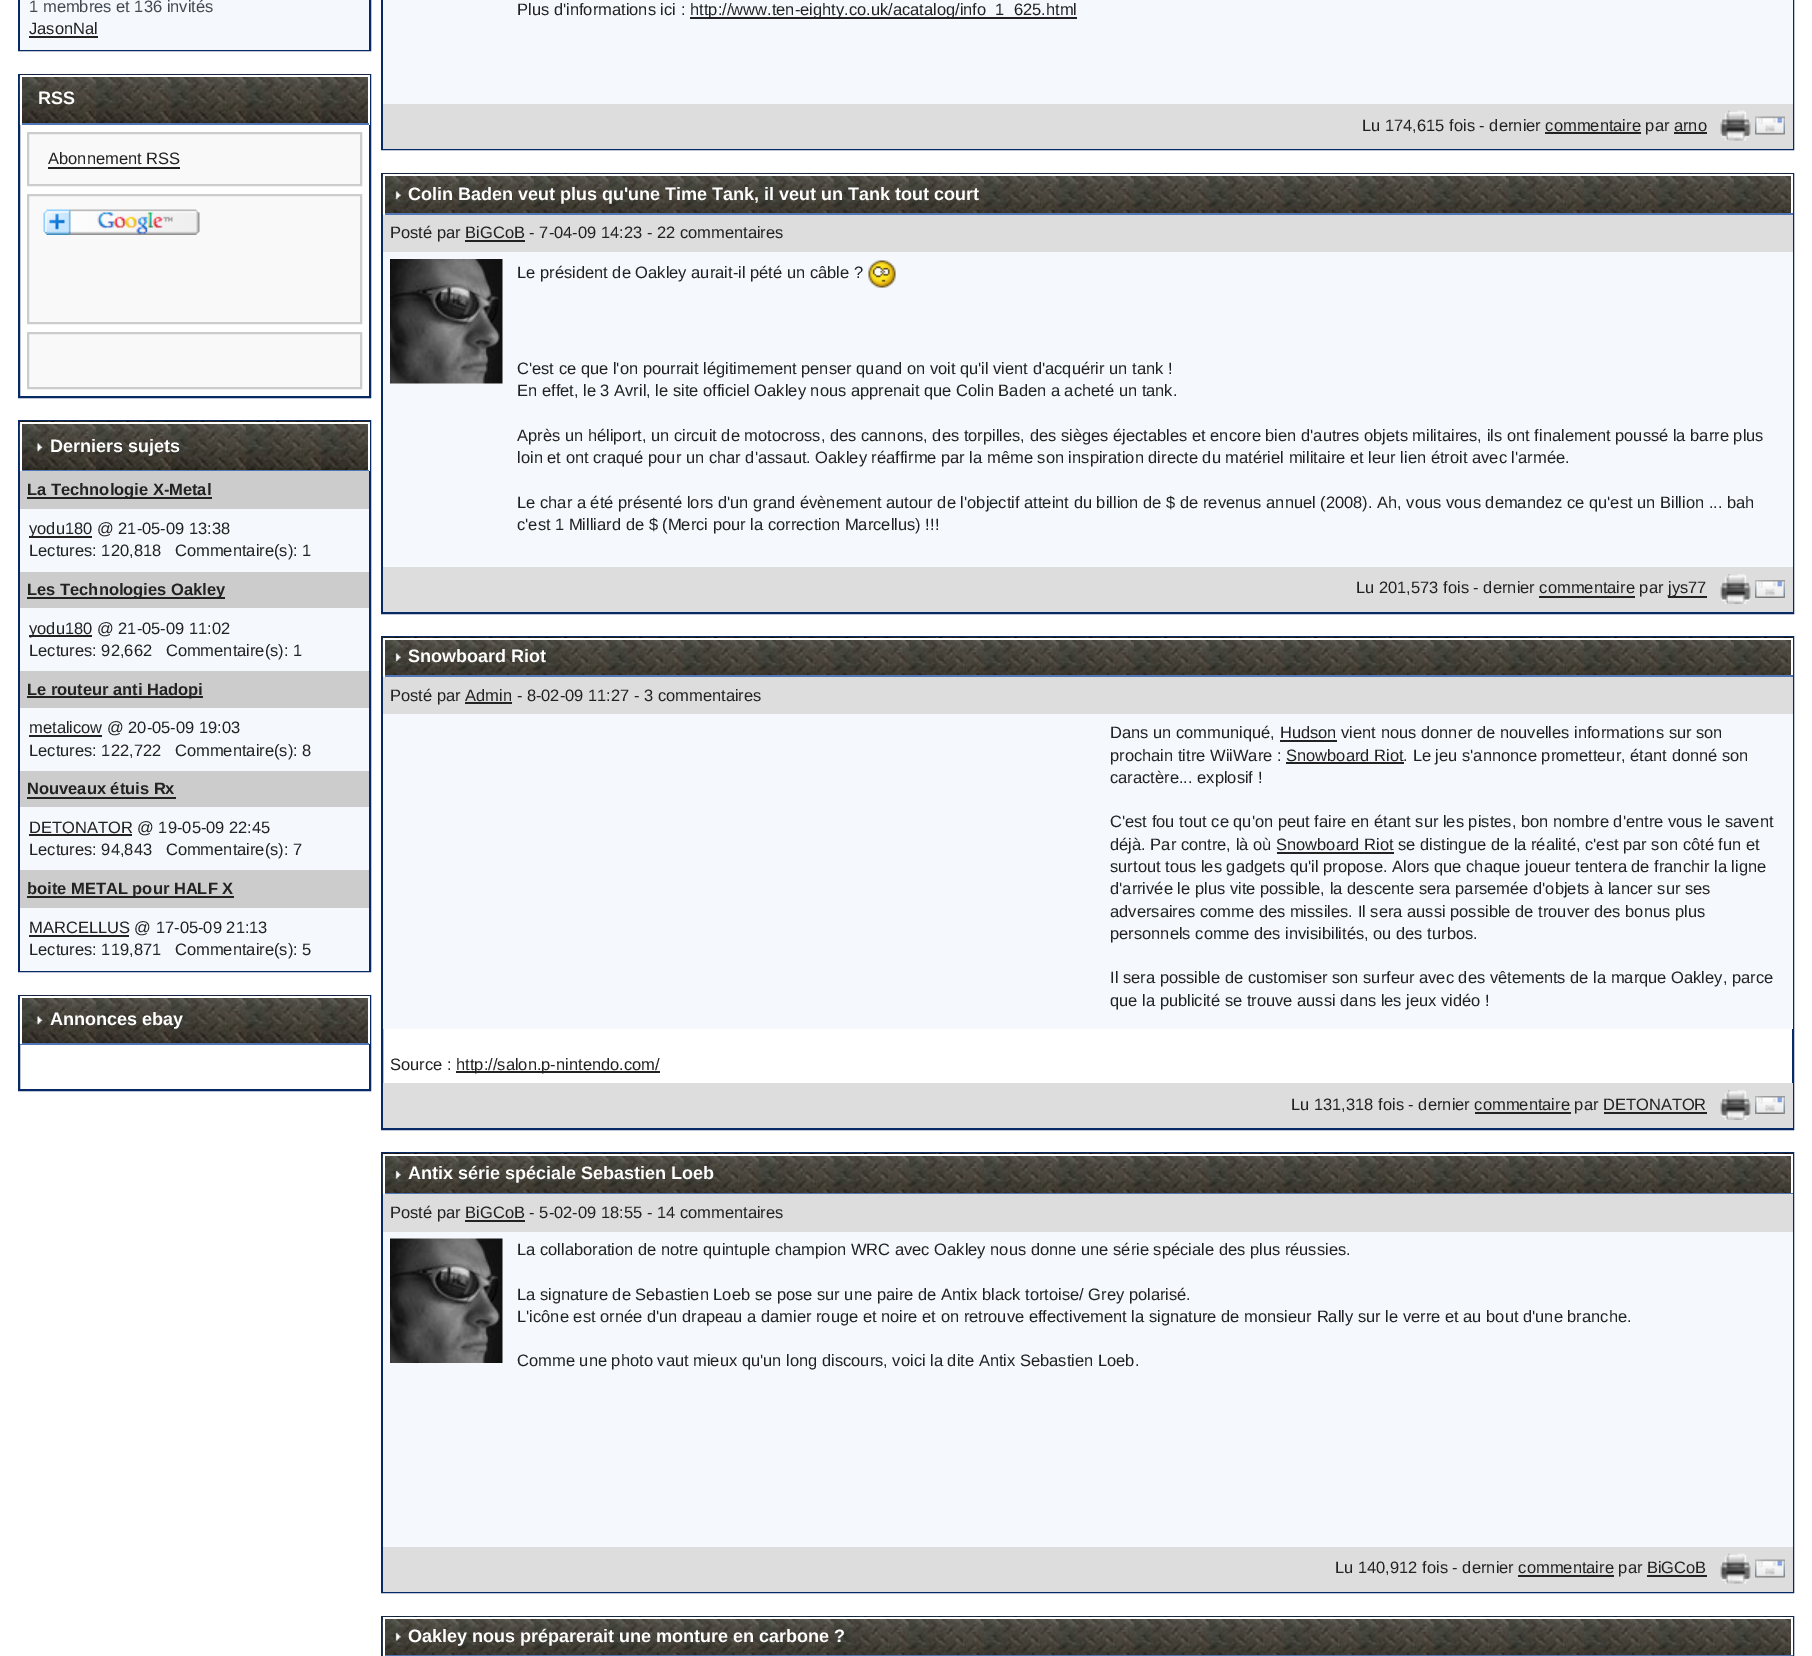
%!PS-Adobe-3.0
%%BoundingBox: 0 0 1812 1656
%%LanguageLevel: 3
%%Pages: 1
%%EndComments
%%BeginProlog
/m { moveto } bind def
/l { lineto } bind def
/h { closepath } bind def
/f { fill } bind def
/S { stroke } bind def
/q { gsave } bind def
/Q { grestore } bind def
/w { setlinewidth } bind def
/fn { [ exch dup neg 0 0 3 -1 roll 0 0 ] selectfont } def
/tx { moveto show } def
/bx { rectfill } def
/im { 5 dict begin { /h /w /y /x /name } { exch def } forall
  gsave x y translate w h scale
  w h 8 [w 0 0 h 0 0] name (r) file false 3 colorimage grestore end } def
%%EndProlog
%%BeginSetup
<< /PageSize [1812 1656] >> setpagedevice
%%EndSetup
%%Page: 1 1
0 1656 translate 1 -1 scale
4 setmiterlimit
1 setgray
0 0 1812 1656 bx
0.027 0.165 0.4 setrgbcolor
2 w
19 -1 351 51 rectstroke
0.961 0.976 0.992 setrgbcolor
20 0 349 50 bx
/LiberationSans-Regular 16.5 fn
0.263 0.286 0.318 setrgbcolor
(1 membres et 136 invités) 29 12 tx
0.133 setgray
(JasonNal) 29 34 tx
29 36 69 2 bx
0.027 0.165 0.4 setrgbcolor
19 75 351 322 rectstroke
(image0.raw) 19 74 350 50 im
1 setgray
20 75 349 2 bx
368 75 2 50 bx
0.318 0.463 0.71 setrgbcolor
20 123 349 2 bx
1 setgray
20 75 2 50 bx
/LiberationSans-Bold 18 fn
(RSS) 38 104 tx
0.976 setgray
28 133 m 361 133 l 361 185 l 28 185 l h q f Q
0.8 setgray
S
/LiberationSans-Regular 16.5 fn
0.133 setgray
(Abonnement RSS) 48 164 tx
48 167 132 2 bx
0.976 setgray
28 195 m 361 195 l 361 323 l 28 323 l h q f Q
0.8 setgray
S
(image1.raw) 43 209 157 26 im
0.976 setgray
28 333 m 361 333 l 361 388 l 28 388 l h q f Q
0.8 setgray
S
0.027 0.165 0.4 setrgbcolor
19 421 351 550 rectstroke
(image2.raw) 19 421 350 50 im
1 setgray
20 422 349 2 bx
368 422 2 49 bx
0.318 0.463 0.71 setrgbcolor
20 470 349 1 bx
1 setgray
20 422 2 49 bx
(image3.raw) 37 443 6 9 im
/LiberationSans-Bold 18 fn
(Derniers sujets) 50 452 tx
0.8 setgray
20 471 349 38 bx
0.133 setgray
27 497 185 2 bx
/LiberationSans-Bold 16.5 fn
(La Technologie X-Metal) 27 495 tx
0.961 0.976 0.992 setrgbcolor
20 509 349 63 bx
0.133 setgray
29 536 63 2 bx
/LiberationSans-Regular 16.5 fn
(yodu180 @ 21-05-09 13:38) 29 534 tx
(Lectures: 120,818   Commentaire\(s\): 1) 29 556 tx
0.8 setgray
20 572 349 36 bx
0.133 setgray
27 597 198 2 bx
/LiberationSans-Bold 16.5 fn
(Les Technologies Oakley) 27 595 tx
0.961 0.976 0.992 setrgbcolor
20 608 349 63 bx
0.133 setgray
29 635 63 2 bx
/LiberationSans-Regular 16.5 fn
(yodu180 @ 21-05-09 11:02) 29 634 tx
(Lectures: 92,662   Commentaire\(s\): 1) 29 656 tx
0.8 setgray
20 671 349 37 bx
0.133 setgray
27 696 176 2 bx
/LiberationSans-Bold 16.5 fn
(Le routeur anti Hadopi) 27 695 tx
0.961 0.976 0.992 setrgbcolor
20 708 349 63 bx
0.133 setgray
29 735 73 2 bx
/LiberationSans-Regular 16.5 fn
(metalicow @ 20-05-09 19:03) 29 733 tx
(Lectures: 122,722   Commentaire\(s\): 8) 29 756 tx
0.8 setgray
20 771 349 36 bx
/LiberationSans-Bold 16.5 fn
0.133 setgray
(Nouveaux étuis Rx) 27 794 tx
27 797 149 2 bx
0.961 0.976 0.992 setrgbcolor
20 807 349 63 bx
0.133 setgray
29 834 103 2 bx
/LiberationSans-Regular 16.5 fn
(DETONATOR @ 19-05-09 22:45) 29 833 tx
(Lectures: 94,843   Commentaire\(s\): 7) 29 855 tx
0.8 setgray
20 870 349 38 bx
0.133 setgray
27 896 207 2 bx
/LiberationSans-Bold 16.5 fn
(boite METAL pour HALF X) 27 894 tx
0.961 0.976 0.992 setrgbcolor
20 908 349 63 bx
0.133 setgray
29 935 100 2 bx
/LiberationSans-Regular 16.5 fn
(MARCELLUS @ 17-05-09 21:13) 29 933 tx
(Lectures: 119,871   Commentaire\(s\): 5) 29 955 tx
0.027 0.165 0.4 setrgbcolor
19 996 351 94 rectstroke
(image4.raw) 19 995 350 49 im
1 setgray
20 996 349 2 bx
368 996 2 48 bx
0.318 0.463 0.71 setrgbcolor
20 1043 349 2 bx
1 setgray
20 996 2 48 bx
(image5.raw) 37 1016 6 9 im
/LiberationSans-Bold 18 fn
(Annonces ebay) 50 1025 tx
0.027 0.165 0.4 setrgbcolor
382 -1 1411 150 rectstroke
0.961 0.976 0.992 setrgbcolor
383 0 1410 104 bx
/LiberationSans-Regular 16.5 fn
0.133 setgray
(Plus d'informations ici :) 517 15 tx
690 17 387 2 bx
(http://www.ten-eighty.co.uk/acatalog/info_1_625.html) 690 15 tx
0.867 setgray
383 104 1410 45 bx
0.133 setgray
(Lu 174,615 fois - dernier commentaire par arno) 1362 131 tx
(image6.raw) 1720 110 31 31 im
(image7.raw) 1755 116 30 19 im
1545 132 96 2 bx
1674 132 33 2 bx
0.027 0.165 0.4 setrgbcolor
382 174 1411 439 rectstroke
(image8.raw) 382 173 1411 41 im
1 setgray
383 174 1410 2 bx
1791 174 2 41 bx
0.318 0.463 0.71 setrgbcolor
383 213 1410 2 bx
1 setgray
383 174 2 41 bx
(image9.raw) 395 191 6 9 im
/LiberationSans-Bold 18 fn
(Colin Baden veut plus qu'une Time Tank, il veut un Tank tout court) 408 200 tx
0.867 setgray
383 215 1410 37 bx
/LiberationSans-Regular 16.5 fn
0.133 setgray
(Posté par BiGCoB - 7-04-09 14:23 - 22 commentaires) 390 238 tx
465 240 60 2 bx
0.961 0.976 0.992 setrgbcolor
383 252 1410 315 bx
(image10.raw) 390 259 113 125 im
0.133 setgray
(Le président de Oakley aurait-il pété un câble ?) 517 278 tx
(image11.raw) 868 260 28 28 im
(C'est ce que l'on pourrait légitimement penser quand on voit qu'il vient d'acquérir un tank !) 517 374 tx
(En effet, le 3 Avril, le site officiel Oakley nous apprenait que Colin Baden a acheté un tank.) 517 396 tx
(Après un héliport, un circuit de motocross, des cannons, des torpilles, des sièges éjectables et encore bien d'autres objets militaires, ils ont finalement poussé la barre plus) 517 441 tx
(loin et ont craqué pour un char d'assaut. Oakley réaffirme par la même son inspiration directe du matériel militaire et leur lien étroit avec l'armée.) 517 463 tx
(Le char a été présenté lors d'un grand évènement autour de l'objectif atteint du billion de $ de revenus annuel \(2008\). Ah, vous vous demandez ce qu'est un Billion ... bah) 517 508 tx
(c'est 1 Milliard de $ \(Merci pour la correction Marcellus\) !!!) 517 530 tx
0.867 setgray
383 567 1410 45 bx
0.133 setgray
(Lu 201,573 fois - dernier commentaire par) 1356 593 tx
1668 596 39 2 bx
(jys77) 1668 593 tx
(image12.raw) 1720 574 31 30 im
(image13.raw) 1755 580 30 18 im
1539 596 96 2 bx
0.027 0.165 0.4 setrgbcolor
382 637 1411 492 rectstroke
(image14.raw) 382 637 1411 39 im
1 setgray
383 638 1410 2 bx
1791 638 2 39 bx
0.318 0.463 0.71 setrgbcolor
383 675 1410 2 bx
1 setgray
383 638 2 39 bx
(image15.raw) 395 653 6 9 im
/LiberationSans-Bold 18 fn
(Snowboard Riot) 408 662 tx
0.867 setgray
383 677 1410 37 bx
/LiberationSans-Regular 16.5 fn
0.133 setgray
(Posté par Admin - 8-02-09 11:27 - 3 commentaires) 390 701 tx
465 702 47 2 bx
0.961 0.976 0.992 setrgbcolor
383 714 1410 315 bx
0.133 setgray
(Dans un communiqué, Hudson vient nous donner de nouvelles informations sur son) 1110 738 tx
1280 740 57 2 bx
(prochain titre WiiWare : Snowboard Riot. Le jeu s'annonce prometteur, étant donné son) 1110 761 tx
1286 762 118 2 bx
(caractère... explosif !) 1110 783 tx
(C'est fou tout ce qu'on peut faire en étant sur les pistes, bon nombre d'entre vous le savent) 1110 827 tx
(déjà. Par contre, là où Snowboard Riot se distingue de la réalité, c'est par son côté fun et) 1110 850 tx
1277 852 117 2 bx
(surtout tous les gadgets qu'il propose. Alors que chaque joueur tentera de franchir la ligne) 1110 872 tx
(d'arrivée le plus vite possible, la descente sera parsemée d'objets à lancer sur ses) 1110 894 tx
(adversaires comme des missiles. Il sera aussi possible de trouver des bonus plus) 1110 917 tx
(personnels comme des invisibilités, ou des turbos.) 1110 939 tx
(Il sera possible de customiser son surfeur avec des vêtements de la marque Oakley, parce) 1110 983 tx
(que la publicité se trouve aussi dans les jeux vidéo !) 1110 1006 tx
(Source :) 390 1070 tx
456 1071 204 2 bx
(http://salon.p-nintendo.com/) 456 1070 tx
0.867 setgray
383 1083 1410 45 bx
0.133 setgray
(Lu 131,318 fois - dernier commentaire par DETONATOR) 1291 1110 tx
(image12.raw) 1720 1090 31 30 im
(image13.raw) 1755 1096 30 18 im
1475 1112 96 2 bx
1604 1112 103 2 bx
0.027 0.165 0.4 setrgbcolor
382 1153 1411 439 rectstroke
(image16.raw) 382 1153 1411 41 im
1 setgray
383 1154 1410 2 bx
1791 1154 2 40 bx
0.318 0.463 0.71 setrgbcolor
383 1193 1410 1 bx
1 setgray
383 1154 2 40 bx
(image17.raw) 395 1170 6 9 im
/LiberationSans-Bold 18 fn
(Antix série spéciale Sebastien Loeb) 408 1179 tx
0.867 setgray
383 1194 1410 38 bx
/LiberationSans-Regular 16.5 fn
0.133 setgray
(Posté par BiGCoB - 5-02-09 18:55 - 14 commentaires) 390 1218 tx
465 1220 60 2 bx
0.961 0.976 0.992 setrgbcolor
383 1232 1410 315 bx
(image18.raw) 390 1238 113 125 im
0.133 setgray
(La collaboration de notre quintuple champion WRC avec Oakley nous donne une série spéciale des plus réussies.) 517 1255 tx
(La signature de Sebastien Loeb se pose sur une paire de Antix black tortoise/ Grey polarisé.) 517 1300 tx
(L'icône est ornée d'un drapeau a damier rouge et noire et on retrouve effectivement la signature de monsieur Rally sur le verre et au bout d'une branche.) 517 1322 tx
(Comme une photo vaut mieux qu'un long discours, voici la dite Antix Sebastien Loeb.) 517 1366 tx
0.867 setgray
383 1547 1410 45 bx
0.133 setgray
(Lu 140,912 fois - dernier commentaire par BiGCoB) 1335 1573 tx
(image6.raw) 1720 1553 31 31 im
(image7.raw) 1755 1559 30 19 im
1518 1575 96 2 bx
1647 1575 60 2 bx
0.027 0.165 0.4 setrgbcolor
382 1617 1411 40 rectstroke
(image19.raw) 382 1616 1411 40 im
1 setgray
383 1617 1410 2 bx
1791 1617 2 39 bx
0.318 0.463 0.71 setrgbcolor
383 1655 1410 1 bx
1 setgray
383 1617 2 39 bx
(image20.raw) 395 1632 6 9 im
/LiberationSans-Bold 18 fn
(Oakley nous préparerait une monture en carbone ?) 408 1642 tx
showpage
%%EOF
